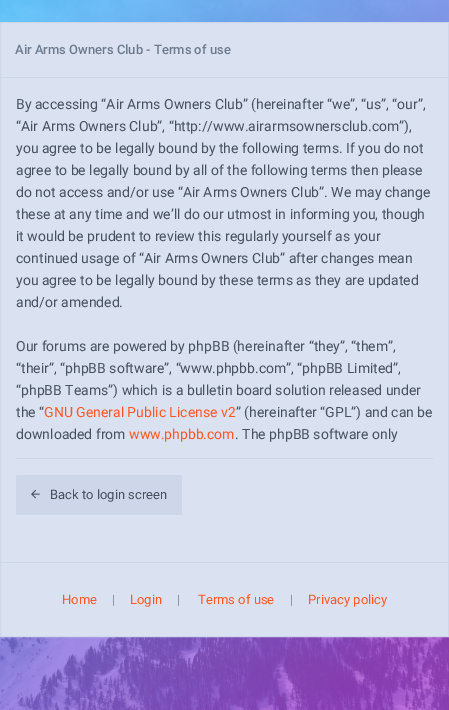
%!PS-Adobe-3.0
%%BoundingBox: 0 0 449 710
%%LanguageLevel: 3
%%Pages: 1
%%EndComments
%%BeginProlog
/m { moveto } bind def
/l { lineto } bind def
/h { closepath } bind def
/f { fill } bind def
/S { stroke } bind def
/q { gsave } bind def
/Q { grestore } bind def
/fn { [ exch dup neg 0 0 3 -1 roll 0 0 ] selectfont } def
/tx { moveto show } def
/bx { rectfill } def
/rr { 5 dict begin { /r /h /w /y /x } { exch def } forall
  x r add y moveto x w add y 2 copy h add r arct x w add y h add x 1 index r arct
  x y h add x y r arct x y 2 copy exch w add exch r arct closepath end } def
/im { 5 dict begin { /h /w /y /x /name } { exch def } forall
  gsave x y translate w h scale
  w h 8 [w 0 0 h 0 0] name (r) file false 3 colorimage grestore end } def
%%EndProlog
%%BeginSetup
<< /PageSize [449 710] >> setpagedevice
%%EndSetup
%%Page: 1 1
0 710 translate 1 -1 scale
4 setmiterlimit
1 setgray
0 0 449 710 bx
(image0.raw) 0 0 449 710 im
0.855 0.886 0.949 setrgbcolor
0.5 22.5 m 448.5 22.5 l 448.5 636.5 l 0.5 636.5 l h q f Q
0.808 0.843 0.918 setrgbcolor
S
0 77 449 1 bx
/Roboto-Medium 13 fn
0.427 0.482 0.557 setrgbcolor
(Air Arms Owners Club - Terms of use) 15 54 tx
/Roboto-Regular 14 fn
0.282 0.318 0.369 setrgbcolor
(By accessing “Air Arms Owners Club” \(hereinafter “we”, “us”, “our”,) 16 109 tx
(“Air Arms Owners Club”, “http://www.airarmsownersclub.com”\),) 16 131 tx
(you agree to be legally bound by the following terms. If you do not) 16 153 tx
(agree to be legally bound by all of the following terms then please) 16 175 tx
(do not access and/or use “Air Arms Owners Club”. We may change) 16 197 tx
(these at any time and we’ll do our utmost in informing you, though) 16 219 tx
(it would be prudent to review this regularly yourself as your) 16 241 tx
(continued usage of “Air Arms Owners Club” after changes mean) 16 263 tx
(you agree to be legally bound by these terms as they are updated) 16 285 tx
(and/or amended.) 16 307 tx
(Our forums are powered by phpBB \(hereinafter “they”, “them”,) 16 351 tx
(“their”, “phpBB software”, “www.phpbb.com”, “phpBB Limited”,) 16 373 tx
(“phpBB Teams”\) which is a bulletin board solution released under) 16 395 tx
(the “) 16 417 tx
1 0.341 0.133 setrgbcolor
(GNU General Public License v2) 44 417 tx
0.282 0.318 0.369 setrgbcolor
(” \(hereinafter “GPL”\) and can be) 236 417 tx
(downloaded from) 16 439 tx
1 0.341 0.133 setrgbcolor
(www.phpbb.com) 129 439 tx
0.282 0.318 0.369 setrgbcolor
(. The phpBB software only) 235 439 tx
0.808 0.843 0.918 setrgbcolor
16 458 417 1 bx
16 475 166 40 2 rr f
(image1.raw) 31 489 9 10 im
/Roboto-Regular 13 fn
0.282 0.318 0.369 setrgbcolor
(Back to login screen) 50 499 tx
0.808 0.843 0.918 setrgbcolor
1 562 447 1 bx
1 0.341 0.133 setrgbcolor
(Home) 62 604 tx
0.541 0.596 0.667 setrgbcolor
(|) 112 604 tx
1 0.341 0.133 setrgbcolor
(Login) 130 604 tx
0.541 0.596 0.667 setrgbcolor
(|) 177 604 tx
1 0.341 0.133 setrgbcolor
(Terms of use) 198 604 tx
0.541 0.596 0.667 setrgbcolor
(|) 290 604 tx
1 0.341 0.133 setrgbcolor
(Privacy policy) 308 604 tx
showpage
%%EOF
